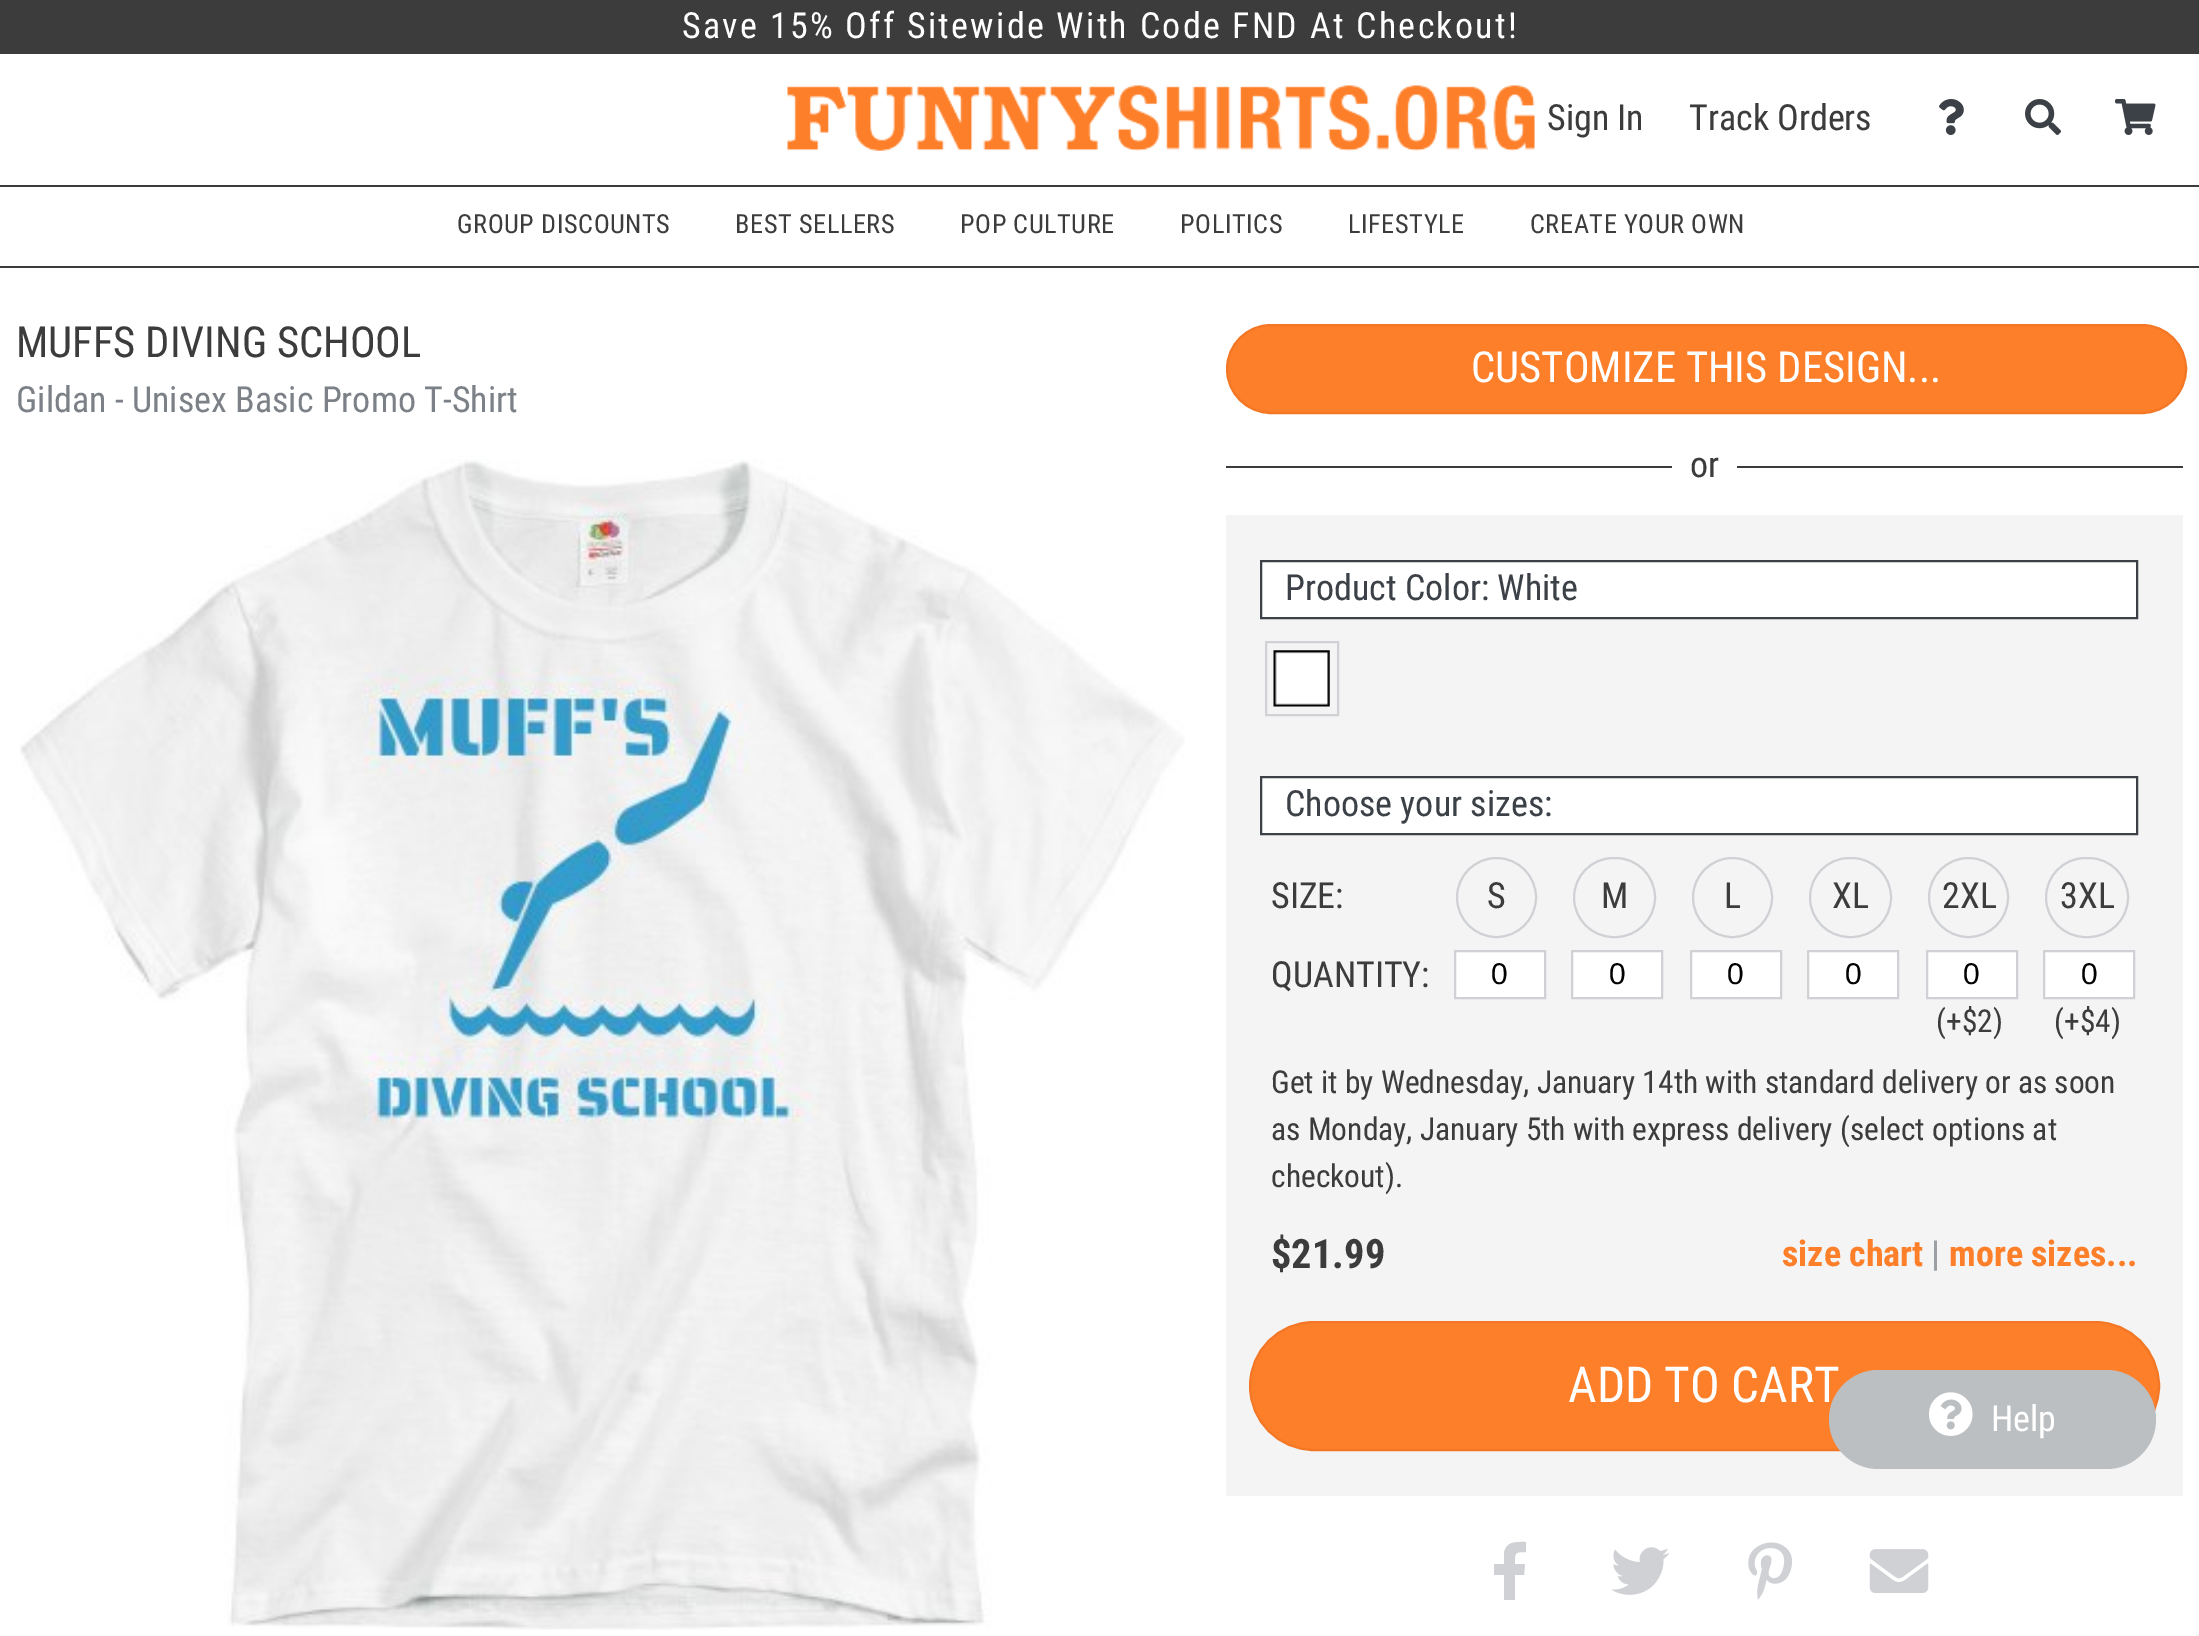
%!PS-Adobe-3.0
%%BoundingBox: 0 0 2199 1636
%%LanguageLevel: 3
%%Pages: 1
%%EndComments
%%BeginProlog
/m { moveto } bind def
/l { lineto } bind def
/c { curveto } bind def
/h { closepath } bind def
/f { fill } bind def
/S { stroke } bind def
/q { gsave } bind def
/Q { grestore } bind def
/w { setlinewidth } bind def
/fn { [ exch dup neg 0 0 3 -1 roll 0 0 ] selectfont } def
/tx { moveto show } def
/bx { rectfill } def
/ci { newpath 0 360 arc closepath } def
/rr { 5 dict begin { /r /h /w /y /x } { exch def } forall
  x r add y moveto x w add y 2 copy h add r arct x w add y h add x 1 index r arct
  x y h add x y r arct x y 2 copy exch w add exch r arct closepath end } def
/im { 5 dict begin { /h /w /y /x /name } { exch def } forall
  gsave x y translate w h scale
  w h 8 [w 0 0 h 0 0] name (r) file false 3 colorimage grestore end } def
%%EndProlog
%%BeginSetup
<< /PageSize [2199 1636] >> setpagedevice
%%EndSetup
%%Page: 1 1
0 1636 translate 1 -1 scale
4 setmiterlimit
1 setgray
0 0 2199 1636 bx
0.235 setgray
0 0 2199 54 bx
/RobotoCondensed-Regular 36 fn
1 setgray
682 38 m 2.25 0 (Save 15% Off Sitewide With Code FND At Checkout!) ashow
0.235 setgray
0 185 2199 2 bx
(image0.raw) 787 85 748 66 im
(Sign In) 1547 130 tx
(Track Orders) 1689 130 tx
(image1.raw) 1939 99 25 36 im
(image2.raw) 2025 99 36 36 im
(image3.raw) 2115 99 41 36 im
0 266 2199 2 bx
/RobotoCondensed-Regular 26.25 fn
457 233 m 0.6 0 (GROUP DISCOUNTS) ashow
735 233 m 0.6 0 (BEST SELLERS) ashow
960 233 m 0.6 0 (POP CULTURE) ashow
1180 233 m 0.6 0 (POLITICS) ashow
1348 233 m 0.6 0 (LIFESTYLE) ashow
1530 233 m 0.6 0 (CREATE YOUR OWN) ashow
/RobotoCondensed-Regular 42.75 fn
(MUFFS DIVING SCHOOL) 16 357 tx
/RobotoCondensed-Regular 36 fn
0.486 0.506 0.533 setrgbcolor
(Gildan - Unisex Basic Promo T-Shirt) 16 412 tx
(image4.raw) 20 459 1165 1171 im
0.996 0.498 0.165 setrgbcolor
1227 325 959 88 44 rr q f Q
0.953 0.467 0.145 setrgbcolor
2 w
S
/RobotoCondensed-Regular 42.75 fn
1 setgray
(CUSTOMIZE THIS DESIGN...) 1471 382 tx
0.235 setgray
1226 466 957 2 bx
1 setgray
1672 466 65 2 bx
/RobotoCondensed-Regular 36 fn
0.235 setgray
(or) 1690 477 tx
0.957 0.957 0.961 setrgbcolor
1226 515 957 981 bx
1 setgray
1261 561 m 2137 561 l 2137 618 l 1261 618 l h q f Q
0.235 0.255 0.278 setrgbcolor
S
(Product Color: White) 1285 600 tx
0.812 0.82 0.831 setrgbcolor
1266 642 72 73 rectstroke
(image5.raw) 1273 650 57 57 im
1 setgray
1261 777 m 2137 777 l 2137 834 l 1261 834 l h q f Q
0.235 0.255 0.278 setrgbcolor
S
(Choose your sizes:) 1285 816 tx
0.235 setgray
(SIZE:) 1271 908 tx
(QUANTITY:) 1271 987 tx
0.812 0.82 0.831 setrgbcolor
1496.5 897.5 39.5 ci S
0.235 setgray
(S) 1487 908 tx
1 setgray
1455 951 m 1545 951 l 1545 998 l 1455 998 l h q f Q
0.812 0.82 0.831 setrgbcolor
S
/LiberationSans-Regular 30 fn
0 setgray
(0) 1491 984 tx
0.812 0.82 0.831 setrgbcolor
1574 858 81 79 39.5 rr S
/RobotoCondensed-Regular 36 fn
0.235 setgray
(M) 1601 908 tx
1 setgray
1572 951 m 1662 951 l 1662 998 l 1572 998 l h q f Q
0.812 0.82 0.831 setrgbcolor
S
/LiberationSans-Regular 30 fn
0 setgray
(0) 1609 984 tx
0.812 0.82 0.831 setrgbcolor
1732.5 897.5 39.5 ci S
/RobotoCondensed-Regular 36 fn
0.235 setgray
(L) 1724 908 tx
1 setgray
1691 951 m 1781 951 l 1781 998 l 1691 998 l h q f Q
0.812 0.82 0.831 setrgbcolor
S
/LiberationSans-Regular 30 fn
0 setgray
(0) 1727 984 tx
0.812 0.82 0.831 setrgbcolor
1810 858 81 79 39.5 rr S
/RobotoCondensed-Regular 36 fn
0.235 setgray
(XL) 1832 908 tx
1 setgray
1808 951 m 1898 951 l 1898 998 l 1808 998 l h q f Q
0.812 0.82 0.831 setrgbcolor
S
/LiberationSans-Regular 30 fn
0 setgray
(0) 1845 984 tx
0.812 0.82 0.831 setrgbcolor
1968.5 897.5 39.5 ci S
/RobotoCondensed-Regular 36 fn
0.235 setgray
(2XL) 1942 908 tx
1 setgray
1927 951 m 2017 951 l 2017 998 l 1927 998 l h q f Q
0.812 0.82 0.831 setrgbcolor
S
/LiberationSans-Regular 30 fn
0 setgray
(0) 1963 984 tx
/RobotoCondensed-Regular 31.5 fn
0.235 setgray
(\(+$2\)) 1936 1032 tx
0.812 0.82 0.831 setrgbcolor
2046 858 82 79 39.5 rr S
/RobotoCondensed-Regular 36 fn
0.235 setgray
(3XL) 2060 908 tx
1 setgray
2044 951 m 2134 951 l 2134 998 l 2044 998 l h q f Q
0.812 0.82 0.831 setrgbcolor
S
/LiberationSans-Regular 30 fn
0 setgray
(0) 2081 984 tx
/RobotoCondensed-Regular 31.5 fn
0.235 setgray
(\(+$4\)) 2054 1032 tx
(Get it by Wednesday, January 14th with standard delivery or as soon) 1271 1093 tx
(as Monday, January 5th with express delivery \(select options at) 1271 1140 tx
(checkout\).) 1271 1187 tx
/RobotoCondensed-Bold 40.5 fn
($21.99) 1271 1268 tx
/RobotoCondensed-Bold 36 fn
0.996 0.498 0.165 setrgbcolor
(size chart) 1782 1266 tx
0.612 0.627 0.647 setrgbcolor
(|) 1931 1266 tx
0.996 0.498 0.165 setrgbcolor
(more sizes...) 1949 1266 tx
1250 1322 909 128 64 rr q f Q
0.953 0.467 0.145 setrgbcolor
S
/RobotoCondensed-Regular 49.5 fn
1 setgray
(ADD TO CART) 1568 1402 tx
0.812 0.82 0.831 setrgbcolor
1524 1575 m 1515 1575 l 1515 1600 l 1504 1600 l 1504 1575 l 1494 1575 l 1494 1564 l 1504 1564 l 1504 1553 l 1506 1541 1516 1542 1526 1542 c 1526 1552 l 1514 1552 1515 1553 1515 1564 c 1525 1564 l h f
(image6.raw) 1611 1547 59 48 im
(image7.raw) 1748 1542 45 58 im
(image8.raw) 1869 1549 60 44 im
0.737 0.749 0.761 setrgbcolor
1829 1370 327 99 49.5 rr f
(image9.raw) 1929 1392 44 44 im
/RobotoCondensed-Regular 36 fn
1 setgray
(Help) 1991 1431 tx
0.961 setgray
2196 1634 3 2 bx
showpage
%%EOF
